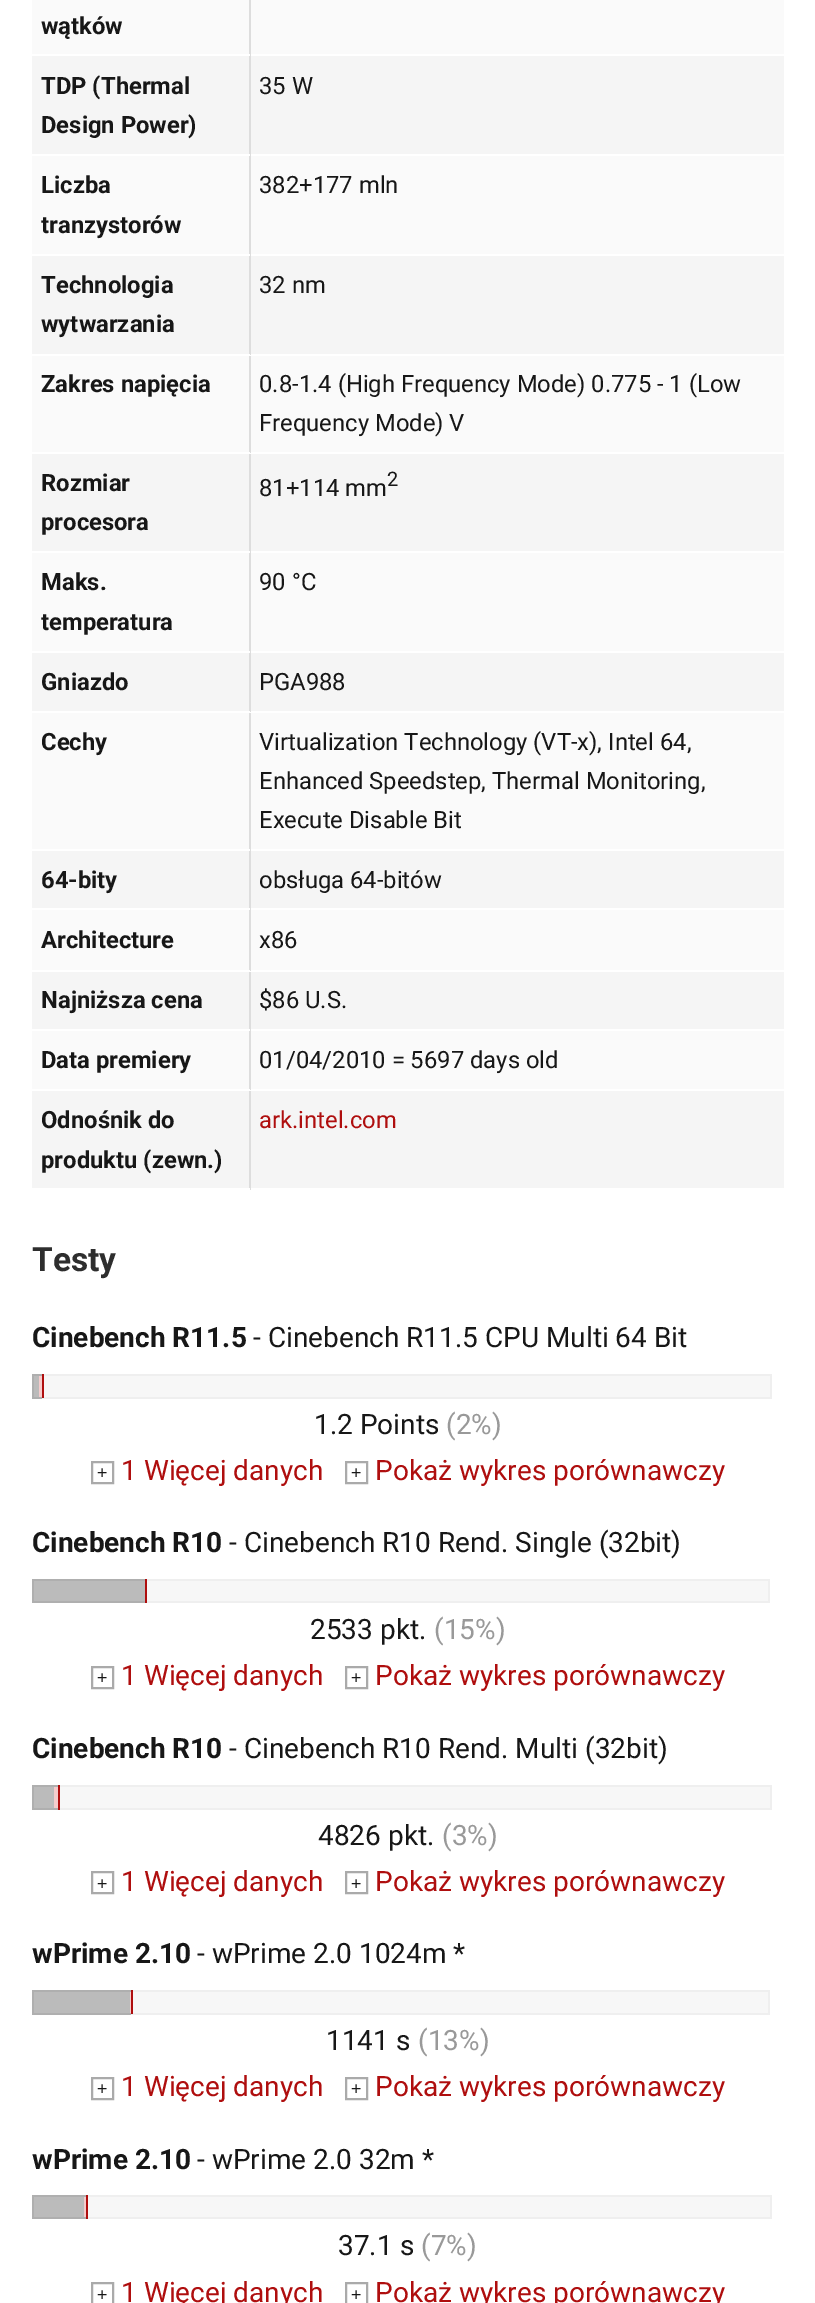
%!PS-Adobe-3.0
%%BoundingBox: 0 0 815 2303
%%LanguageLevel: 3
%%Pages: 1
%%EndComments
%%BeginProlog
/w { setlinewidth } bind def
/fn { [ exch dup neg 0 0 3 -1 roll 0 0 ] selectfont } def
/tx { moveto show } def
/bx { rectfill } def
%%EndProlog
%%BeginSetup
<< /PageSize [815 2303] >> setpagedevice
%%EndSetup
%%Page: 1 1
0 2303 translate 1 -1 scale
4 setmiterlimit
1 setgray
0 0 815 2303 bx
0.969 setgray
133 1992 635 21 bx
44 1376 726 21 bx
0.98 setgray
32 0 752 54 bx
0.961 setgray
32 56 752 98 bx
0.98 setgray
32 156 752 98 bx
0.961 setgray
32 256 752 98 bx
0.98 setgray
32 356 752 96 bx
0.961 setgray
32 454 752 97 bx
0.98 setgray
32 553 752 98 bx
0.961 setgray
32 653 752 58 bx
0.98 setgray
32 713 752 136 bx
0.961 setgray
32 851 752 57 bx
0.98 setgray
32 910 752 60 bx
0.961 setgray
32 972 752 57 bx
0.98 setgray
32 1031 752 58 bx
0.961 setgray
32 1091 752 97 bx
0.867 setgray
249 1089 2 101 bx
1 setgray
249 1089 2 2 bx
0.867 setgray
249 1029 2 61 bx
1 setgray
249 1029 2 2 bx
0.867 setgray
249 970 2 61 bx
1 setgray
249 970 2 2 bx
0.867 setgray
249 908 2 63 bx
1 setgray
249 908 2 2 bx
0.867 setgray
249 849 2 61 bx
1 setgray
249 849 2 2 bx
0.867 setgray
249 711 2 140 bx
1 setgray
249 711 2 2 bx
0.867 setgray
249 651 2 61 bx
1 setgray
249 651 2 2 bx
0.867 setgray
249 551 2 102 bx
1 setgray
249 551 2 2 bx
0.867 setgray
249 452 2 101 bx
1 setgray
249 452 2 2 bx
0.867 setgray
249 354 2 99 bx
1 setgray
249 354 2 2 bx
0.867 setgray
249 254 2 101 bx
1 setgray
249 254 2 2 bx
0.867 setgray
249 154 2 102 bx
1 setgray
249 154 2 2 bx
0.867 setgray
249 54 2 102 bx
1 setgray
249 54 2 2 bx
0.867 setgray
249 0 2 56 bx
1 setgray
249 54 1 2 bx
/Roboto-Bold 23.8 fn
0.09 setgray
(wątków) 41 34 tx
1 setgray
249 154 1 2 bx
0.09 setgray
(TDP \(Thermal) 41 94 tx
(Design Power\)) 41 133 tx
/Roboto-Regular 23.8 fn
(35 W) 259 94 tx
1 setgray
249 254 1 2 bx
/Roboto-Bold 23.8 fn
0.09 setgray
(Liczba) 41 193 tx
(tranzystorów) 41 233 tx
/Roboto-Regular 23.8 fn
(382+177 mln) 259 193 tx
1 setgray
249 354 1 1 bx
/Roboto-Bold 23.8 fn
0.09 setgray
(Technologia) 41 293 tx
(wytwarzania) 41 332 tx
/Roboto-Regular 23.8 fn
(32 nm) 259 293 tx
1 setgray
249 452 1 1 bx
/Roboto-Bold 23.8 fn
0.09 setgray
(Zakres napięcia) 41 392 tx
/Roboto-Regular 23.8 fn
(0.8-1.4 \(High Frequency Mode\) 0.775 - 1 \(Low) 259 392 tx
(Frequency Mode\) V) 259 431 tx
1 setgray
249 551 1 2 bx
/Roboto-Bold 23.8 fn
0.09 setgray
(Rozmiar) 41 491 tx
(procesora) 41 530 tx
/Roboto-Regular 23.8 fn
(81+114 mm) 259 496 tx
/Roboto-Regular 20 fn
(2) 387 486 tx
1 setgray
249 651 1 2 bx
/Roboto-Bold 23.8 fn
0.09 setgray
(Maks.) 41 590 tx
(temperatura) 41 630 tx
/Roboto-Regular 23.8 fn
(90 °C) 259 590 tx
1 setgray
249 711 1 1 bx
/Roboto-Bold 23.8 fn
0.09 setgray
(Gniazdo) 41 690 tx
/Roboto-Regular 23.8 fn
(PGA988) 259 690 tx
1 setgray
249 849 1 2 bx
/Roboto-Bold 23.8 fn
0.09 setgray
(Cechy) 41 750 tx
/Roboto-Regular 23.8 fn
(Virtualization Technology \(VT-x\), Intel 64,) 259 750 tx
(Enhanced Speedstep, Thermal Monitoring,) 259 789 tx
(Execute Disable Bit) 259 828 tx
1 setgray
249 908 1 2 bx
/Roboto-Bold 23.8 fn
0.09 setgray
(64-bity) 41 888 tx
/Roboto-Regular 23.8 fn
(obsługa 64-bitów) 259 888 tx
1 setgray
249 970 1 1 bx
/Roboto-Bold 23.8 fn
0.09 setgray
(Architecture) 41 948 tx
/Roboto-Regular 23.8 fn
(x86) 259 948 tx
1 setgray
249 1029 1 2 bx
/Roboto-Bold 23.8 fn
0.09 setgray
(Najniższa cena) 41 1008 tx
/Roboto-Regular 23.8 fn
($86 U.S.) 259 1008 tx
1 setgray
249 1089 1 1 bx
/Roboto-Bold 23.8 fn
0.09 setgray
(Data premiery) 41 1068 tx
/Roboto-Regular 23.8 fn
(01/04/2010 = 5697 days old) 259 1068 tx
1 setgray
249 1188 1 2 bx
/Roboto-Bold 23.8 fn
0.09 setgray
(Odnośnik do) 41 1128 tx
(produktu \(zewn.\)) 41 1168 tx
/Roboto-Regular 23.8 fn
0.686 0.055 0.055 setrgbcolor
(ark.intel.com) 259 1128 tx
/Roboto-Bold 33.5 fn
0.18 setgray
(Testy) 32 1271 tx
/Roboto-Bold 28 fn
0.09 setgray
(Cinebench R11.5) 32 1347 tx
/Roboto-Regular 28 fn
(- Cinebench R11.5 CPU Multi 64 Bit) 253 1347 tx
0.733 setgray
34 1374 5 24 bx
0.686 setgray
32 1374 7 2 bx
32 1397 7 2 bx
32 1374 2 24 bx
0.961 0.8 0.8 setrgbcolor
39 1374 3 24 bx
0.686 setgray
39 1374 4 2 bx
39 1397 4 2 bx
0.937 setgray
42 1374 730 2 bx
770 1374 2 24 bx
42 1397 730 2 bx
0.686 0.055 0.055 setrgbcolor
42 1374 2 24 bx
0.09 setgray
(1.2 Points) 314 1434 tx
0.6 setgray
(\(2%\)) 446 1434 tx
0.667 setgray
2 w
92 1462 21 21 rectstroke
/DejaVuSansMono-Regular 17 fn
0.09 setgray
(+) 97 1478 tx
/Roboto-Regular 28 fn
0.686 0.055 0.055 setrgbcolor
(1 Więcej danych) 121 1480 tx
0.667 setgray
346 1462 21 21 rectstroke
/DejaVuSansMono-Regular 17 fn
0.09 setgray
(+) 351 1478 tx
/Roboto-Regular 28 fn
0.686 0.055 0.055 setrgbcolor
(Pokaż wykres porównawczy) 375 1480 tx
/Roboto-Bold 28 fn
0.09 setgray
(Cinebench R10) 32 1552 tx
/Roboto-Regular 28 fn
(- Cinebench R10 Rend. Single \(32bit\)) 229 1552 tx
0.733 setgray
34 1581 111 20 bx
0.686 setgray
32 1579 113 2 bx
32 1601 113 2 bx
32 1579 2 24 bx
0.686 0.055 0.055 setrgbcolor
145 1579 2 24 bx
0.969 setgray
147 1581 621 20 bx
0.937 setgray
147 1579 623 2 bx
768 1579 2 24 bx
147 1601 623 2 bx
0.09 setgray
(2533 pkt.) 310 1639 tx
0.6 setgray
(\(15%\)) 434 1639 tx
0.667 setgray
92 1667 21 21 rectstroke
/DejaVuSansMono-Regular 17 fn
0.09 setgray
(+) 97 1683 tx
/Roboto-Regular 28 fn
0.686 0.055 0.055 setrgbcolor
(1 Więcej danych) 121 1685 tx
0.667 setgray
346 1667 21 21 rectstroke
/DejaVuSansMono-Regular 17 fn
0.09 setgray
(+) 351 1683 tx
/Roboto-Regular 28 fn
0.686 0.055 0.055 setrgbcolor
(Pokaż wykres porównawczy) 375 1685 tx
/Roboto-Bold 28 fn
0.09 setgray
(Cinebench R10) 32 1758 tx
/Roboto-Regular 28 fn
(- Cinebench R10 Rend. Multi \(32bit\)) 229 1758 tx
0.733 setgray
34 1787 20 21 bx
0.686 setgray
32 1785 22 2 bx
32 1808 22 2 bx
32 1785 2 25 bx
0.961 0.8 0.8 setrgbcolor
54 1785 4 25 bx
0.686 setgray
54 1785 4 2 bx
54 1808 4 2 bx
0.969 setgray
60 1787 710 21 bx
0.937 setgray
58 1785 714 2 bx
770 1785 2 25 bx
58 1808 714 2 bx
0.686 0.055 0.055 setrgbcolor
58 1785 2 25 bx
0.09 setgray
(4826 pkt.) 318 1845 tx
0.6 setgray
(\(3%\)) 442 1845 tx
0.667 setgray
92 1872 21 21 rectstroke
/DejaVuSansMono-Regular 17 fn
0.09 setgray
(+) 97 1889 tx
/Roboto-Regular 28 fn
0.686 0.055 0.055 setrgbcolor
(1 Więcej danych) 121 1891 tx
0.667 setgray
346 1872 21 21 rectstroke
/DejaVuSansMono-Regular 17 fn
0.09 setgray
(+) 351 1889 tx
/Roboto-Regular 28 fn
0.686 0.055 0.055 setrgbcolor
(Pokaż wykres porównawczy) 375 1891 tx
/Roboto-Bold 28 fn
0.09 setgray
(wPrime 2.10) 32 1963 tx
/Roboto-Regular 28 fn
(- wPrime 2.0 1024m *) 197 1963 tx
0.733 setgray
34 1992 96 21 bx
0.686 setgray
32 1990 98 2 bx
32 2013 98 2 bx
32 1990 2 24 bx
0.961 0.8 0.8 setrgbcolor
130 1990 1 24 bx
0.686 setgray
130 1990 2 2 bx
130 2013 2 2 bx
0.937 setgray
131 1990 639 2 bx
768 1990 2 24 bx
131 2013 639 2 bx
0.686 0.055 0.055 setrgbcolor
131 1990 2 24 bx
0.09 setgray
(1141 s) 326 2050 tx
0.6 setgray
(\(13%\)) 418 2050 tx
0.667 setgray
92 2078 21 21 rectstroke
/DejaVuSansMono-Regular 17 fn
0.09 setgray
(+) 97 2094 tx
/Roboto-Regular 28 fn
0.686 0.055 0.055 setrgbcolor
(1 Więcej danych) 121 2096 tx
0.667 setgray
346 2078 21 21 rectstroke
/DejaVuSansMono-Regular 17 fn
0.09 setgray
(+) 351 2094 tx
/Roboto-Regular 28 fn
0.686 0.055 0.055 setrgbcolor
(Pokaż wykres porównawczy) 375 2096 tx
/Roboto-Bold 28 fn
0.09 setgray
(wPrime 2.10) 32 2169 tx
/Roboto-Regular 28 fn
(- wPrime 2.0 32m *) 197 2169 tx
0.733 setgray
34 2197 50 20 bx
0.686 setgray
32 2195 52 2 bx
32 2217 52 2 bx
32 2195 2 24 bx
0.961 0.8 0.8 setrgbcolor
84 2195 2 24 bx
0.686 setgray
84 2195 2 2 bx
84 2217 2 2 bx
0.969 setgray
88 2197 682 20 bx
0.937 setgray
86 2195 686 2 bx
770 2195 2 24 bx
86 2217 686 2 bx
0.686 0.055 0.055 setrgbcolor
86 2195 2 24 bx
0.09 setgray
(37.1 s) 338 2255 tx
0.6 setgray
(\(7%\)) 421 2255 tx
0.667 setgray
92 2283 21 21 rectstroke
/DejaVuSansMono-Regular 17 fn
0.09 setgray
(+) 97 2300 tx
/Roboto-Regular 28 fn
0.686 0.055 0.055 setrgbcolor
(1 Więcej danych) 121 2302 tx
0.667 setgray
346 2283 21 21 rectstroke
/DejaVuSansMono-Regular 17 fn
0.09 setgray
(+) 351 2300 tx
/Roboto-Regular 28 fn
0.686 0.055 0.055 setrgbcolor
(Pokaż wykres porównawczy) 375 2302 tx
showpage
%%EOF
